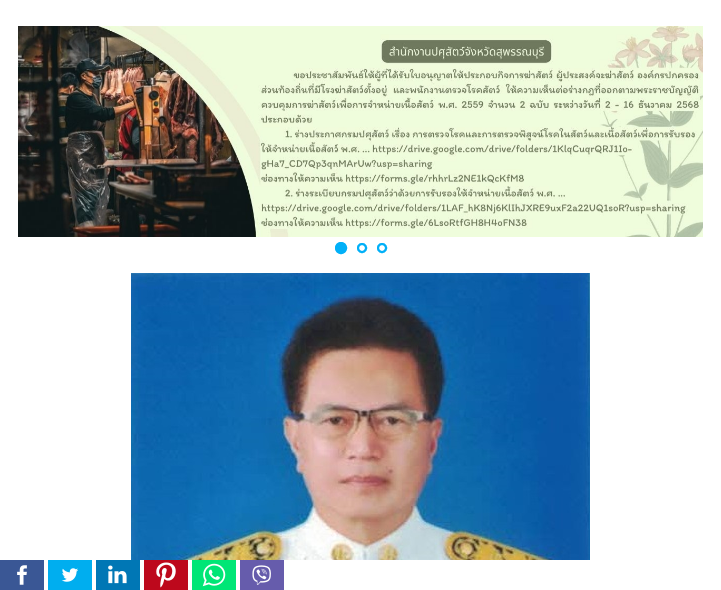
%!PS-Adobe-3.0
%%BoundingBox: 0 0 721 590
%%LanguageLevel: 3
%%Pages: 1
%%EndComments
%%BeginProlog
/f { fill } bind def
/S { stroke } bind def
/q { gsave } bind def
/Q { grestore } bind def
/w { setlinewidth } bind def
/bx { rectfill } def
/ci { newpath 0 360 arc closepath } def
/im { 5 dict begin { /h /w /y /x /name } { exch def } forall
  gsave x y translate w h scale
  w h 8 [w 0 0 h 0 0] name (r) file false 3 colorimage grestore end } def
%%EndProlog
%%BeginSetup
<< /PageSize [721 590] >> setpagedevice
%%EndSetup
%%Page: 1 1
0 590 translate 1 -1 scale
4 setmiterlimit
1 setgray
0 0 721 590 bx
(image0.raw) 18 26 685 211 im
0.004 0.69 0.973 setrgbcolor
341 248 5 ci q f Q
2 w
S
362 248 4 ci S
382 248 4 ci S
(image1.raw) 131 273 459 287 im
0.227 0.341 0.584 setrgbcolor
0 560 44 30 bx
(image2.raw) 17 565 10 20 im
0 0.682 0.937 setrgbcolor
48 560 44 30 bx
(image3.raw) 61 568 17 14 im
0 0.467 0.71 setrgbcolor
96 560 44 30 bx
(image4.raw) 108 565 19 19 im
0.741 0.031 0.11 setrgbcolor
144 560 44 30 bx
(image5.raw) 156 562 20 26 im
0 0.902 0.463 setrgbcolor
192 560 44 30 bx
(image6.raw) 202 563 24 24 im
0.4 0.361 0.675 setrgbcolor
240 560 44 30 bx
(image7.raw) 252 565 19 20 im
showpage
%%EOF
